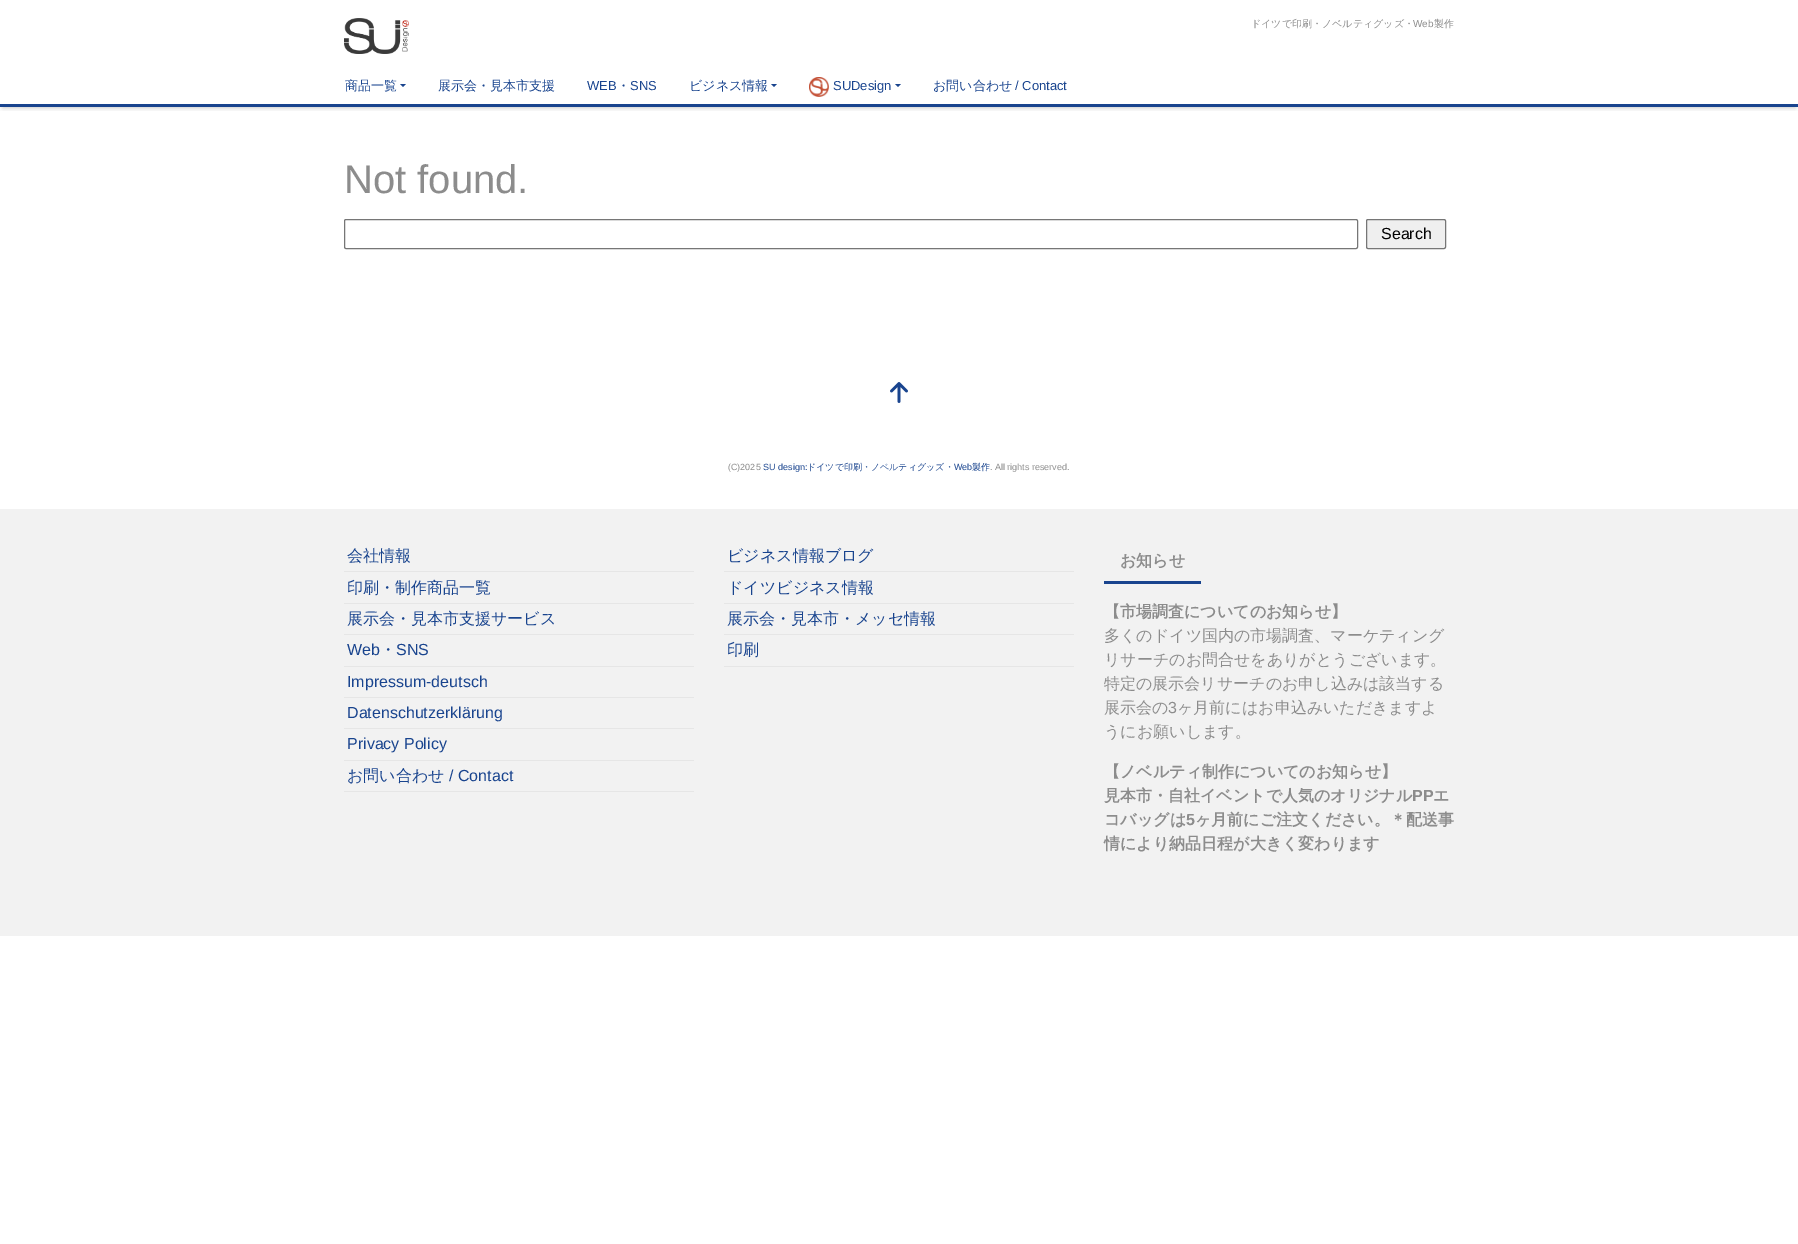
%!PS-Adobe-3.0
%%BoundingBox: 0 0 1798 1244
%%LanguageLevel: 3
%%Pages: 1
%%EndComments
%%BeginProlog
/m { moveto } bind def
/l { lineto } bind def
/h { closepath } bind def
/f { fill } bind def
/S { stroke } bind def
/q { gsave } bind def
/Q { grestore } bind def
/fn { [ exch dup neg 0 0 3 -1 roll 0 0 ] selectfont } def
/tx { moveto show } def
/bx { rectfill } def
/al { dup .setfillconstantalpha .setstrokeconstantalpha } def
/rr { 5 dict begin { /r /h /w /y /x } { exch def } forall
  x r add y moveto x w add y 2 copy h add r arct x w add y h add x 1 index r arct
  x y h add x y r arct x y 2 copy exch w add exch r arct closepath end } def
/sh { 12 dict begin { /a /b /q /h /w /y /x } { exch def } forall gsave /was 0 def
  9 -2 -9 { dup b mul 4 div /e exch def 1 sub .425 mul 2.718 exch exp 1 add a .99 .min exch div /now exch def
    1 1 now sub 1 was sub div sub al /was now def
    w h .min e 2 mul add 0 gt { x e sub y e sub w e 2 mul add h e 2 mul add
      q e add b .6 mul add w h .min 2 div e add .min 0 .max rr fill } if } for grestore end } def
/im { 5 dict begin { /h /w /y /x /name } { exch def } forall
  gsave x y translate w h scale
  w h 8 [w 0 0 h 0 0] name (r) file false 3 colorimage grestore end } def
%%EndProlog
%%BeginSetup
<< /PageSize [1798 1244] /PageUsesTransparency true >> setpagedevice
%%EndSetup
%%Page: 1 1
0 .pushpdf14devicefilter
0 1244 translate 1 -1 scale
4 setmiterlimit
1 setgray
0 0 1798 1244 bx
(image0.raw) 344 18 65 36 im
/WenQuanYiZenHei-Medium 10 fn
0.549 setgray
(ドイツで印刷・ノベルティグッズ・) 1251 27 tx
/LiberationSans-Regular 10 fn
(Web) 1413 27 tx
/WenQuanYiZenHei-Medium 10 fn
(製作) 1434 27 tx
q
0 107 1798 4 rectclip
0 setgray
3 76 1792 31 0 3 0.3 sh
Q
0.098 0.267 0.557 setrgbcolor
0 104 1798 3 bx
/WenQuanYiZenHei-Medium 13 fn
(商品一覧) 345 90 tx
400 84 m 406 84 l 403 87 l h f
(展示会・見本市支援) 438 90 tx
/LiberationSans-Regular 13 fn
(WEB) 587 90 tx
/WenQuanYiZenHei-Medium 13 fn
(・) 617 90 tx
/LiberationSans-Regular 13 fn
(SNS) 630 90 tx
/WenQuanYiZenHei-Medium 13 fn
(ビジネス情報) 689 90 tx
771 84 m 777 84 l 774 87 l h f
(image1.raw) 809 77 20 20 im
/LiberationSans-Regular 13 fn
(SUDesign) 833 90 tx
895 84 m 901 84 l 898 87 l h f
/WenQuanYiZenHei-Medium 13 fn
(お問い合わせ) 933 90 tx
/LiberationSans-Regular 13 fn
(/ Contact) 1015 90 tx
/LiberationSans-Regular 40 fn
0.549 setgray
(Not found.) 344 193 tx
0.463 setgray
344.5 219.5 1013 29 1.5 rr S
0.937 setgray
1366.5 219.5 79 29 1.5 rr q f Q
0.463 setgray
S
/LiberationSans-Regular 16 fn
0 setgray
(Search) 1381 239 tx
(image2.raw) 890 382 18 21 im
/LiberationSans-Regular 9 fn
0.549 setgray
(\(C\)2025) 728 470 tx
0.098 0.267 0.557 setrgbcolor
(SU design:) 763 470 tx
/WenQuanYiZenHei-Medium 9 fn
(ドイツで印刷・ノベルティグッズ・) 807 470 tx
/LiberationSans-Regular 9 fn
(Web) 954 470 tx
/WenQuanYiZenHei-Medium 9 fn
(製作) 972 470 tx
/LiberationSans-Regular 9 fn
0.549 setgray
(. All rights reserved.) 990 470 tx
0.949 setgray
0 509 1798 427 bx
0.902 setgray
344 571 350 1 bx
/WenQuanYiZenHei-Medium 16 fn
0.098 0.267 0.557 setrgbcolor
(会社情報) 347 561 tx
0.902 setgray
344 603 350 1 bx
0.098 0.267 0.557 setrgbcolor
(印刷・制作商品一覧) 347 593 tx
0.902 setgray
344 634 350 1 bx
0.098 0.267 0.557 setrgbcolor
(展示会・見本市支援サービス) 347 624 tx
0.902 setgray
344 666 350 1 bx
/LiberationSans-Regular 16 fn
0.098 0.267 0.557 setrgbcolor
(Web) 347 655 tx
/WenQuanYiZenHei-Medium 16 fn
(・) 380 655 tx
/LiberationSans-Regular 16 fn
(SNS) 396 655 tx
0.902 setgray
344 697 350 1 bx
0.098 0.267 0.557 setrgbcolor
(Impressum-deutsch) 347 687 tx
0.902 setgray
344 728 350 1 bx
0.098 0.267 0.557 setrgbcolor
(Datenschutzerklärung) 347 718 tx
0.902 setgray
344 760 350 1 bx
0.098 0.267 0.557 setrgbcolor
(Privacy Policy) 347 749 tx
0.902 setgray
344 791 350 1 bx
/WenQuanYiZenHei-Medium 16 fn
0.098 0.267 0.557 setrgbcolor
(お問い合わせ) 347 781 tx
/LiberationSans-Regular 16 fn
(/ Contact) 449 781 tx
0.902 setgray
724 571 350 1 bx
/WenQuanYiZenHei-Medium 16 fn
0.098 0.267 0.557 setrgbcolor
(ビジネス情報ブログ) 727 561 tx
0.902 setgray
724 603 350 1 bx
0.098 0.267 0.557 setrgbcolor
(ドイツビジネス情報) 727 593 tx
0.902 setgray
724 634 350 1 bx
0.098 0.267 0.557 setrgbcolor
(展示会・見本市・メッセ情報) 727 624 tx
0.902 setgray
724 666 350 1 bx
0.098 0.267 0.557 setrgbcolor
(印刷) 727 655 tx
1104 581 97 3 bx
/WenQuanYiZenHei-Bold 16 fn
0.549 setgray
(お知らせ) 1120 566 tx
(【市場調査についてのお知らせ】) 1104 617 tx
/WenQuanYiZenHei-Medium 16 fn
(多くのドイツ国内の市場調査、マーケティング) 1104 641 tx
(リサーチのお問合せをありがとうございます。) 1104 665 tx
(特定の展示会リサーチのお申し込みは該当する) 1104 689 tx
(展示会の) 1104 713 tx
/LiberationSans-Regular 16 fn
(3) 1168 713 tx
/WenQuanYiZenHei-Medium 16 fn
(ヶ月前にはお申込みいただきますよ) 1177 713 tx
(うにお願いします。) 1104 737 tx
/WenQuanYiZenHei-Bold 16 fn
(【ノベルティ制作についてのお知らせ】) 1104 777 tx
(見本市・自社イベントで人気のオリジナル) 1104 801 tx
/LiberationSans-Bold 16 fn
(PP) 1412 801 tx
/WenQuanYiZenHei-Bold 16 fn
(エ) 1433 801 tx
(コバッグは) 1104 825 tx
/LiberationSans-Bold 16 fn
(5) 1186 825 tx
/WenQuanYiZenHei-Bold 16 fn
(ヶ月前にご注文ください。＊配送事) 1195 825 tx
(情により納品日程が大きく変わります) 1104 849 tx
.poppdf14devicefilter showpage
%%EOF
